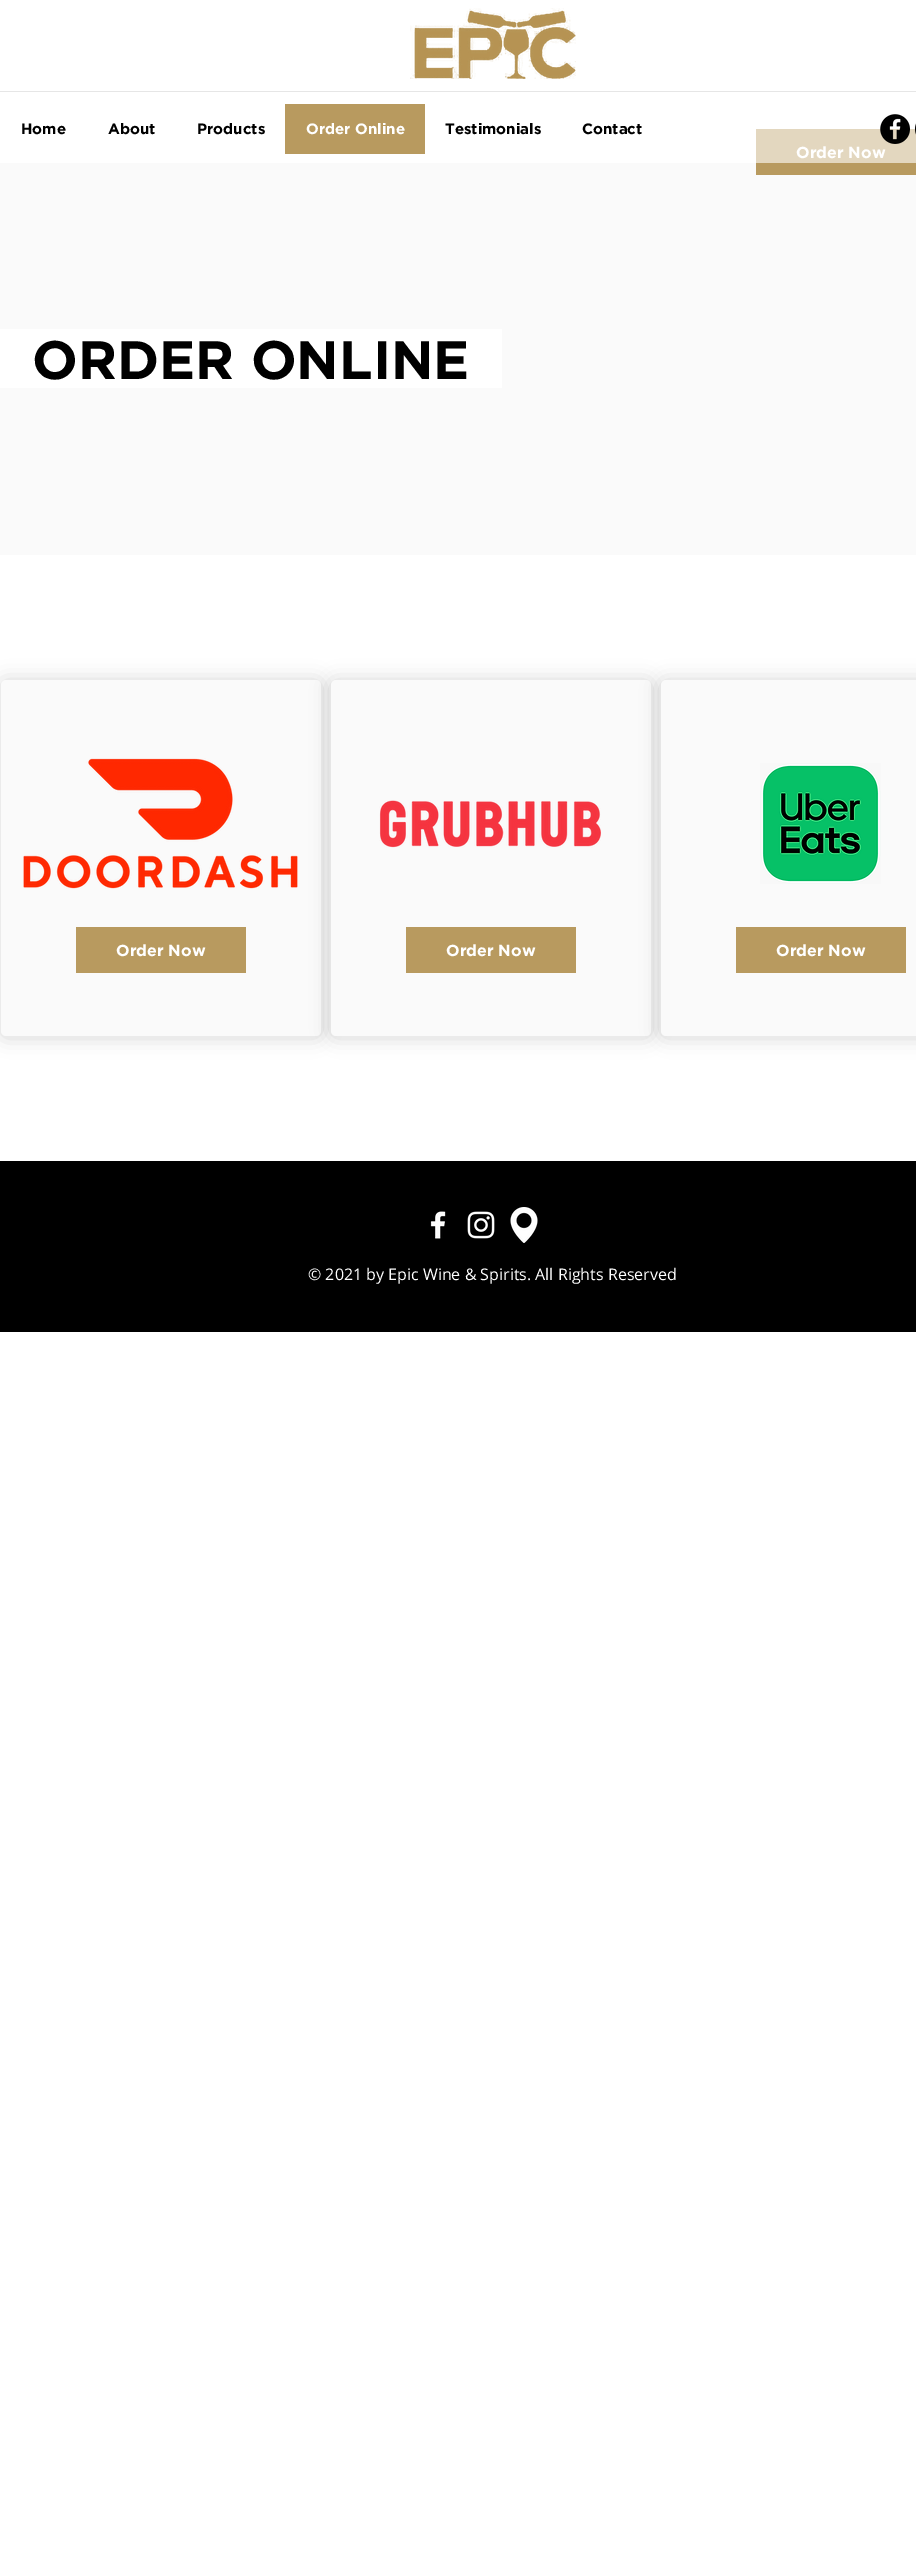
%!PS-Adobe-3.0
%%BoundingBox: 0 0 916 2560
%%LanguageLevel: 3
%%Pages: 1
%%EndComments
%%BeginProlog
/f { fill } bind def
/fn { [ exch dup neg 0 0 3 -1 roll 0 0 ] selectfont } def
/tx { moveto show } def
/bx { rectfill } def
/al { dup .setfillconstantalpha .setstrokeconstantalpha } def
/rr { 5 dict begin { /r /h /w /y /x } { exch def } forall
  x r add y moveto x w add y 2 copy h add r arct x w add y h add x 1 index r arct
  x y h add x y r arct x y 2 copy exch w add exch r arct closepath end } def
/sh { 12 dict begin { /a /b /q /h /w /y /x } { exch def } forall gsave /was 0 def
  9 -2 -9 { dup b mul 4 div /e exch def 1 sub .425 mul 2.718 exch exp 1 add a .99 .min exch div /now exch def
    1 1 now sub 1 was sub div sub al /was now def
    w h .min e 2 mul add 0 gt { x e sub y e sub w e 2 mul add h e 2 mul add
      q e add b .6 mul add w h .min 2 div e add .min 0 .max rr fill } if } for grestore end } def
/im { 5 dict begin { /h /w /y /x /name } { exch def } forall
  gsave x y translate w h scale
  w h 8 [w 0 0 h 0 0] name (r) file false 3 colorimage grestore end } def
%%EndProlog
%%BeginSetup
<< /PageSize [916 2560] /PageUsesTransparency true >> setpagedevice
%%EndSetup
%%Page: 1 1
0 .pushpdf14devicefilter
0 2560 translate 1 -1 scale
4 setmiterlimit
1 setgray
0 0 916 2560 bx
(image0.raw) 410 8 166 71 im
0.902 setgray
0 91 916 1 bx
/Gotham-Bold 15 fn
0 setgray
(Home) 21 134 tx
(About) 108 134 tx
(Products) 197 134 tx
0.722 0.604 0.373 setrgbcolor
285 104 140 50 bx
1 setgray
(Order Online) 306 134 tx
0 setgray
(Testimonials) 445 134 tx
(Contact) 582 134 tx
0.89 0.843 0.749 setrgbcolor
756 129 160 34 bx
(image1.raw) 880 114 30 30 im
(image2.raw) 915 123 1 12 im
0.98 setgray
0 163 916 392 bx
0.722 0.604 0.373 setrgbcolor
756 163 160 12 bx
/Gotham-Bold 16 fn
1 setgray
(Order Now) 796 158 tx
0 329 502 59 bx
/Gotham-Bold 54 fn
0 setgray
(ORDER ONLINE) 32 379 tx
0 680 322 358 6 9.5 0.15 sh
0.98 setgray
1 680 320 356 5 rr f
(image3.raw) 23 758 275 131 im
0.722 0.604 0.373 setrgbcolor
76 927 170 46 bx
/Gotham-Bold 16 fn
1 setgray
(Order Now) 116 956 tx
0 setgray
330 680 322 358 6 9.5 0.15 sh
0.98 setgray
331 680 320 356 5 rr f
(image4.raw) 379 800 222 48 im
0.722 0.604 0.373 setrgbcolor
406 927 170 46 bx
1 setgray
(Order Now) 446 956 tx
0 setgray
660 680 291 358 6 9.5 0.15 sh
0.98 setgray
661 680 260 356 5 rr f
(image5.raw) 760 763 121 121 im
0.722 0.604 0.373 setrgbcolor
736 927 170 46 bx
1 setgray
(Order Now) 776 956 tx
0 setgray
0 1161 916 171 bx
(image6.raw) 430 1211 16 28 im
(image7.raw) 467 1211 28 28 im
(image8.raw) 510 1207 28 36 im
/OpenSans-Regular 16 fn
1 setgray
(© 2021 by Epic Wine & Spirits. All Rights Reserved) 308 1280 tx
.poppdf14devicefilter showpage
%%EOF
